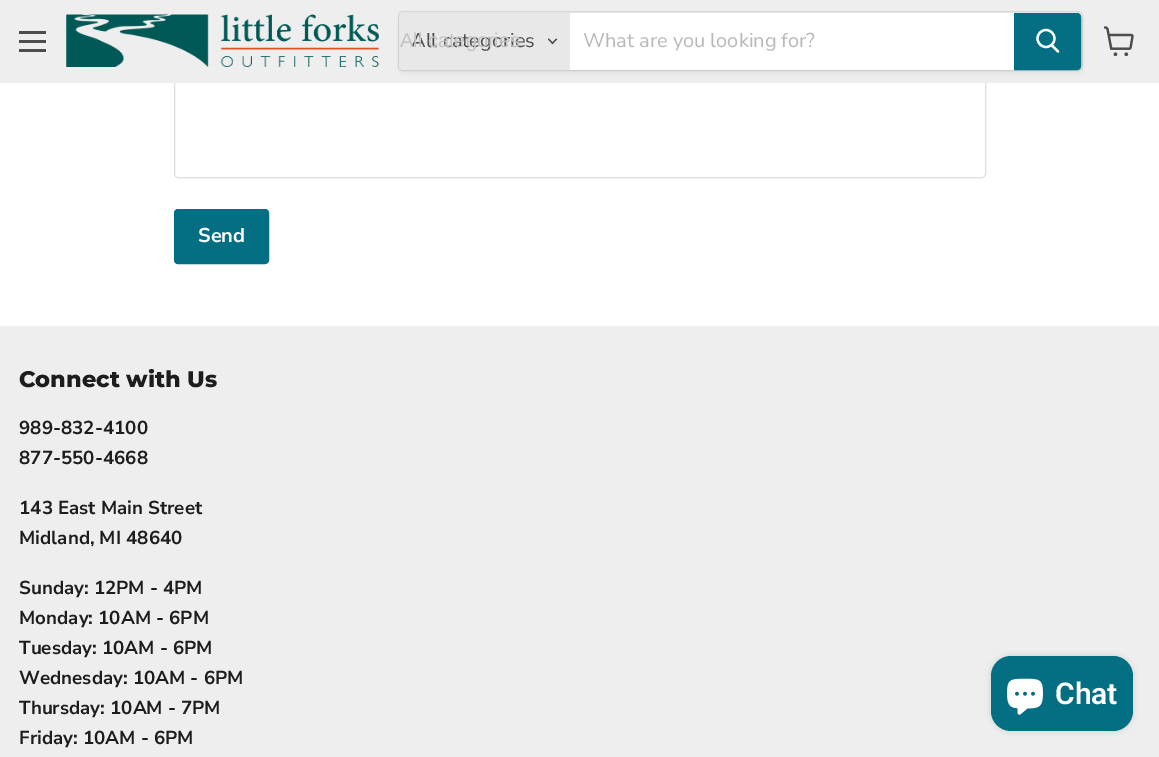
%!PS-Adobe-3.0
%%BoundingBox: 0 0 1159 757
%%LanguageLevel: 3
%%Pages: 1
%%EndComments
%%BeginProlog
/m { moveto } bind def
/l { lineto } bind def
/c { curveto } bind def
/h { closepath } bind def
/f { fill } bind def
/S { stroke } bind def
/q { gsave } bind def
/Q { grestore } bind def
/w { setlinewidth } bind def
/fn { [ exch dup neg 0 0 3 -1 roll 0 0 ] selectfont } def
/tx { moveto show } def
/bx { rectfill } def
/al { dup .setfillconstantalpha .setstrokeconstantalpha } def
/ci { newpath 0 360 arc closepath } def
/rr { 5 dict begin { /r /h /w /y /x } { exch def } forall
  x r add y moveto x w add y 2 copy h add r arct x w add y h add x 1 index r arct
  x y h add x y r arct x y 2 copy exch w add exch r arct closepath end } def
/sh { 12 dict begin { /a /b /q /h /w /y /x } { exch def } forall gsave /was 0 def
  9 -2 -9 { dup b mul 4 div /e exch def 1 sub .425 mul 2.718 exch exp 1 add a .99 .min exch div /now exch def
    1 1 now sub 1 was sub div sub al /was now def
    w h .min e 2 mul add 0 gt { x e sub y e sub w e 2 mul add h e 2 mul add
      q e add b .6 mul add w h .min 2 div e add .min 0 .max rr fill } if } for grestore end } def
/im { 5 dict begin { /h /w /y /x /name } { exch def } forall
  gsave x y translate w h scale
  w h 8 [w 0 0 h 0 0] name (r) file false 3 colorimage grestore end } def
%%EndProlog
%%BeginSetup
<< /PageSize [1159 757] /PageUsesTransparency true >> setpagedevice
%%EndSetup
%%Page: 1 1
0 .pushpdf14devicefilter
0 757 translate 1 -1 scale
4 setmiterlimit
1 setgray
0 0 1159 757 bx
0.867 setgray
174.5 -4.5 811 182 3.5 rr S
0.933 setgray
0 0 1159 83 bx
0.302 setgray
19 31 27 3 bx
19 40 27 3 bx
19 49 27 3 bx
(image0.raw) 66 14 313 53 im
0.502 setgray
398 14 685 60 5 2 0.11 sh
0.2 al
398.5 11.5 684 59 4.5 rr S
1 al
0.91 setgray
403 13 m 570 13 l 570 70 l 403 70 l 401 70 399 68 399 66 c 399 17 l 399 15 401 13 403 13 c h f
/NunitoSans-Regular 20 fn
0.302 setgray
(All categories) 411 47 tx
/LiberationSans-Regular 20 fn
0.765 setgray
(All categories) 400 47 tx
(image1.raw) 548 38 10 7 im
1 setgray
570 13 444 57 bx
/NunitoSans-Regular 20 fn
0.722 setgray
(What are you looking for?) 583 47 tx
0.016 0.431 0.51 setrgbcolor
1014.5 13.5 m 1077 13.5 l 1079 13.5 1080.5 15 1080.5 17 c 1080.5 66 l 1080.5 68 1079 69.5 1077 69.5 c 1014.5 69.5 l h q f Q
S
1 setgray
2.2 w
1 setlinecap
1058 51.5 m 1052 45.5 l S
0 setlinecap
1046 38.5 8.5 ci S
(image2.raw) 1104 26 30 30 im
0.016 0.431 0.51 setrgbcolor
174.5 209.5 94 54 3.5 rr q f Q
1 w
S
/NunitoSans-Bold 20 fn
1 setgray
(Send) 198 242 tx
0.933 setgray
0 326 1159 431 bx
/Montserrat-ExtraBold 22.5 fn
0.114 setgray
(Connect with Us) 19 387 tx
/NunitoSans-Bold 18.75 fn
(989-832-4100) 19 434 tx
(877-550-4668) 19 464 tx
(143 East Main Street) 19 514 tx
(Midland, MI 48640) 19 544 tx
(Sunday: 12PM - 4PM) 19 594 tx
(Monday: 10AM - 6PM) 19 624 tx
(Tuesday: 10AM - 6PM) 19 654 tx
(Wednesday: 10AM - 6PM) 19 684 tx
(Thursday: 10AM - 7PM) 19 714 tx
(Friday: 10AM - 6PM) 19 744 tx
0 setgray
991 656 142 75 20 3 0.15 sh
0.016 0.431 0.51 setrgbcolor
991 656 142 75 20 rr f
(image3.raw) 1007 678 36 37 im
/Roboto-SemiBold 30 fn
1 setgray
(Chat) 1055 704 tx
.poppdf14devicefilter showpage
%%EOF
